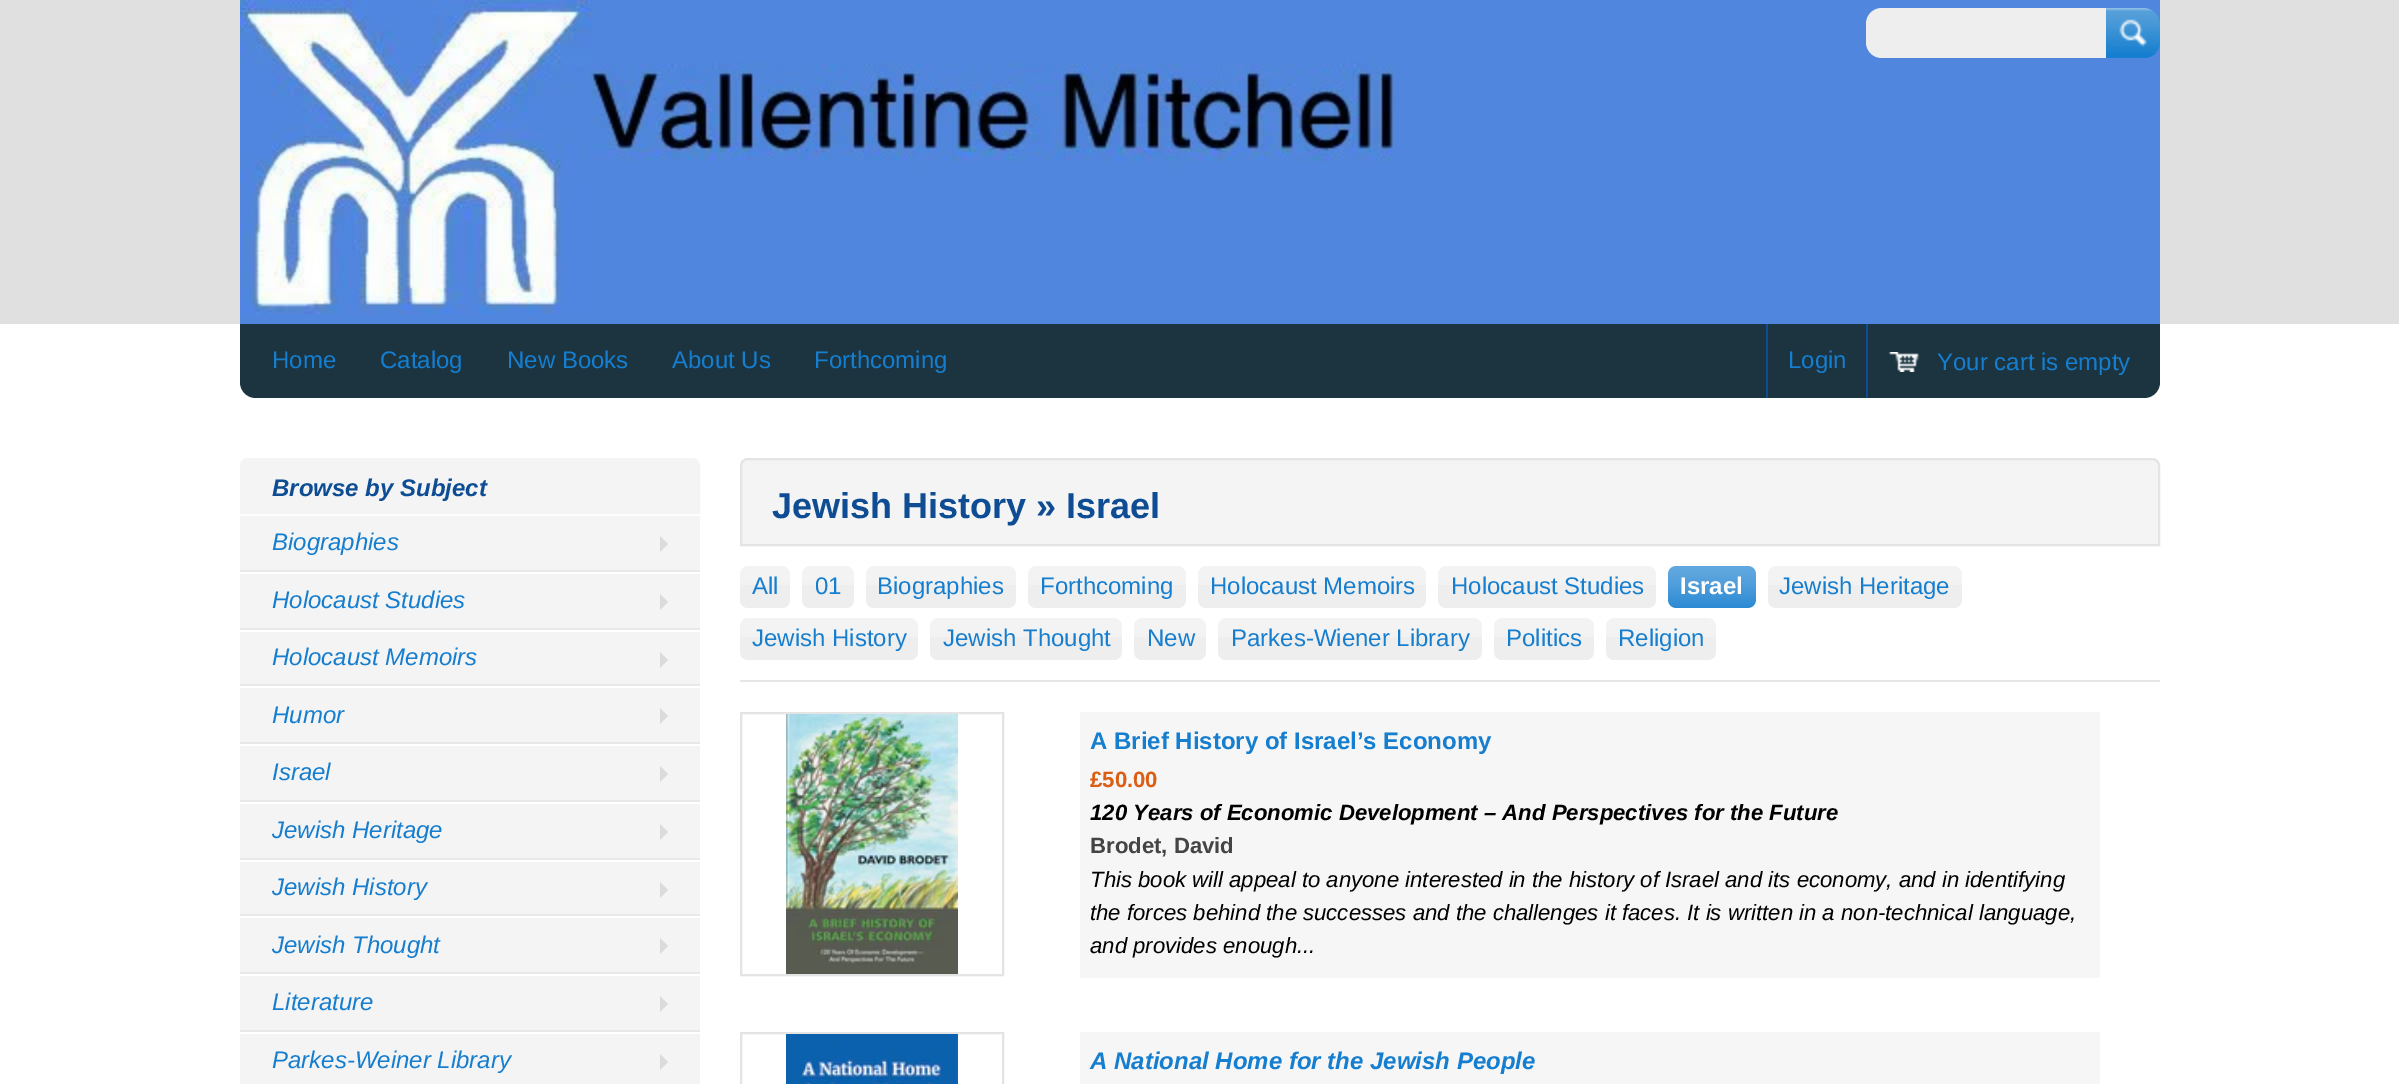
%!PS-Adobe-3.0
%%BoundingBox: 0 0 2399 1084
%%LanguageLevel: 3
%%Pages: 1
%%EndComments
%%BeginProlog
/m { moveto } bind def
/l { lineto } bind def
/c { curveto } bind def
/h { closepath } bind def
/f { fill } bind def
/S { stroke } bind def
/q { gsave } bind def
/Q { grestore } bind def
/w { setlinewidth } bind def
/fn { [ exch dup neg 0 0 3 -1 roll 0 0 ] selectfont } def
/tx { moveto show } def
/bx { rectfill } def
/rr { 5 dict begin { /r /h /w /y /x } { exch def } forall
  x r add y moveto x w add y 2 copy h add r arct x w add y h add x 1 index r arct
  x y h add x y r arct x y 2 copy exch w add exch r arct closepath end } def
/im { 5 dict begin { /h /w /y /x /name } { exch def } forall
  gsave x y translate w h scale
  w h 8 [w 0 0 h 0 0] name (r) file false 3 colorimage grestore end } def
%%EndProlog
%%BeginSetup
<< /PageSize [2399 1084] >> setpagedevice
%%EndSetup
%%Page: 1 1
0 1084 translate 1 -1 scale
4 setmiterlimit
0.878 setgray
0 0 2399 1084 bx
0.314 0.525 0.871 setrgbcolor
240 0 1920 324 bx
(image0.raw) 240 0 1155 314 im
0.933 setgray
1882 8 m 2106 8 l 2106 58 l 1882 58 l 1873 58 1866 51 1866 42 c 1866 24 l 1866 15 1873 8 1882 8 c h f
0.086 0.494 0.812 setrgbcolor
2106 8 m 2144 8 l 2153 8 2160 15 2160 24 c 2160 42 l 2160 51 2153 58 2144 58 c 2106 58 l h f
(image1.raw) 2106 8 54 45 im
1 setgray
0 324 2399 760 bx
0.106 0.204 0.251 setrgbcolor
240 324 m 2160 324 l 2160 382 l 2160 391 2153 398 2144 398 c 256 398 l 247 398 240 391 240 382 c h f
/LiberationSans-Regular 24 fn
0.086 0.494 0.812 setrgbcolor
(Home) 272 368 tx
(Catalog) 380 368 tx
(New Books) 507 368 tx
(About Us) 672 368 tx
(Forthcoming) 814 368 tx
0.055 0.298 0.58 setrgbcolor
1766 324 2 74 bx
0.086 0.494 0.812 setrgbcolor
(Login) 1788 368 tx
0.055 0.298 0.58 setrgbcolor
1866 324 2 74 bx
(image2.raw) 1888 352 32 20 im
0.086 0.494 0.812 setrgbcolor
(Your cart is empty) 1937 370 tx
0.957 setgray
248 459 m 692 459 l 696 459 699 462 699 466 c 699 513 l 241 513 l 241 466 l 241 462 244 459 248 459 c h q f Q
2 w
S
/LiberationSans-BoldItalic 24 fn
0.055 0.298 0.58 setrgbcolor
(Browse by Subject) 272 496 tx
0.957 setgray
240 516 460 54 bx
0.91 setgray
240 570 460 2 bx
/LiberationSans-Italic 24 fn
0.086 0.494 0.812 setrgbcolor
(Biographies) 272 550 tx
0.859 setgray
660 552 m 660 536 l 668 544 l h f
0.957 setgray
240 574 460 54 bx
0.91 setgray
240 628 460 2 bx
0.086 0.494 0.812 setrgbcolor
(Holocaust Studies) 272 608 tx
0.859 setgray
660 610 m 660 594 l 668 602 l h f
0.957 setgray
240 632 460 52 bx
0.91 setgray
240 684 460 2 bx
0.086 0.494 0.812 setrgbcolor
(Holocaust Memoirs) 272 665 tx
0.859 setgray
660 668 m 660 652 l 668 660 l h f
0.957 setgray
240 688 460 54 bx
0.91 setgray
240 742 460 2 bx
0.086 0.494 0.812 setrgbcolor
(Humor) 272 723 tx
0.859 setgray
660 724 m 660 708 l 668 716 l h f
0.957 setgray
240 746 460 54 bx
0.91 setgray
240 800 460 2 bx
0.086 0.494 0.812 setrgbcolor
(Israel) 272 780 tx
0.859 setgray
660 782 m 660 766 l 668 774 l h f
0.957 setgray
240 804 460 54 bx
0.91 setgray
240 858 460 2 bx
0.086 0.494 0.812 setrgbcolor
(Jewish Heritage) 272 838 tx
0.859 setgray
660 840 m 660 824 l 668 832 l h f
0.957 setgray
240 862 460 52 bx
0.91 setgray
240 914 460 2 bx
0.086 0.494 0.812 setrgbcolor
(Jewish History) 272 895 tx
0.859 setgray
660 898 m 660 882 l 668 890 l h f
0.957 setgray
240 918 460 54 bx
0.91 setgray
240 972 460 2 bx
0.086 0.494 0.812 setrgbcolor
(Jewish Thought) 272 953 tx
0.859 setgray
660 954 m 660 938 l 668 946 l h f
0.957 setgray
240 976 460 54 bx
0.91 setgray
240 1030 460 2 bx
0.086 0.494 0.812 setrgbcolor
(Literature) 272 1010 tx
0.859 setgray
660 1012 m 660 996 l 668 1004 l h f
0.957 setgray
240 1034 460 50 bx
0.086 0.494 0.812 setrgbcolor
(Parkes-Weiner Library) 272 1068 tx
0.859 setgray
660 1070 m 660 1054 l 668 1062 l h f
0.957 setgray
748 459 m 2152 459 l 2156 459 2159 462 2159 466 c 2159 545 l 741 545 l 741 466 l 741 462 744 459 748 459 c h q f Q
0.894 setgray
S
/LiberationSans-Bold 36 fn
0.055 0.298 0.58 setrgbcolor
(Jewish History » Israel) 772 518 tx
0.902 setgray
740 680 1420 2 bx
0.933 setgray
740 566 50 42 8 rr f
(image3.raw) 740 566 50 19 im
/LiberationSans-Regular 24 fn
0.086 0.494 0.812 setrgbcolor
(All) 752 594 tx
0.933 setgray
802 566 52 42 8 rr f
(image4.raw) 802 566 52 19 im
0.086 0.494 0.812 setrgbcolor
(01) 815 594 tx
0.933 setgray
866 566 150 42 8 rr f
(image5.raw) 866 566 150 19 im
0.086 0.494 0.812 setrgbcolor
(Biographies) 877 594 tx
0.933 setgray
1028 566 158 42 8 rr f
(image6.raw) 1028 566 158 19 im
0.086 0.494 0.812 setrgbcolor
(Forthcoming) 1040 594 tx
0.933 setgray
1198 566 228 42 8 rr f
(image7.raw) 1198 566 228 19 im
0.086 0.494 0.812 setrgbcolor
(Holocaust Memoirs) 1210 594 tx
0.933 setgray
1438 566 218 42 8 rr f
(image8.raw) 1438 566 218 19 im
0.086 0.494 0.812 setrgbcolor
(Holocaust Studies) 1451 594 tx
1668 566 88 42 8 rr f
(image9.raw) 1668 566 88 42 im
/LiberationSans-Bold 24 fn
1 setgray
(Israel) 1680 594 tx
0.933 setgray
1768 566 194 42 8 rr f
(image10.raw) 1768 566 194 19 im
/LiberationSans-Regular 24 fn
0.086 0.494 0.812 setrgbcolor
(Jewish Heritage) 1779 594 tx
0.933 setgray
740 618 178 42 8 rr f
(image11.raw) 740 618 178 19 im
0.086 0.494 0.812 setrgbcolor
(Jewish History) 752 646 tx
0.933 setgray
930 618 192 42 8 rr f
(image12.raw) 930 618 192 19 im
0.086 0.494 0.812 setrgbcolor
(Jewish Thought) 943 646 tx
0.933 setgray
1134 618 72 42 8 rr f
(image13.raw) 1134 618 72 19 im
0.086 0.494 0.812 setrgbcolor
(New) 1147 646 tx
0.933 setgray
1218 618 264 42 8 rr f
(image14.raw) 1218 618 264 19 im
0.086 0.494 0.812 setrgbcolor
(Parkes-Wiener Library) 1231 646 tx
0.933 setgray
1494 618 100 42 8 rr f
(image15.raw) 1494 618 100 19 im
0.086 0.494 0.812 setrgbcolor
(Politics) 1506 646 tx
0.933 setgray
1606 618 110 42 8 rr f
(image16.raw) 1606 618 110 19 im
0.086 0.494 0.812 setrgbcolor
(Religion) 1618 646 tx
0.894 setgray
741 713 262 262 rectstroke
(image17.raw) 786 714 172 260 im
0.965 setgray
1080 712 1020 266 bx
/LiberationSans-Bold 24 fn
0.086 0.494 0.812 setrgbcolor
(A Brief History of Israel’s Economy) 1090 749 tx
/LiberationSans-Bold 22.15 fn
0.855 0.369 0.075 setrgbcolor
(£50.00) 1090 787 tx
/LiberationSans-BoldItalic 22.15 fn
0 setgray
(120 Years of Economic Development – And Perspectives for the Future) 1090 820 tx
/LiberationSans-Bold 22.15 fn
0.267 setgray
(Brodet, David) 1090 853 tx
/LiberationSans-Italic 22.15 fn
0 setgray
(This book will appeal to anyone interested in the history of Israel and its economy, and in identifying) 1090 887 tx
(the forces behind the successes and the challenges it faces. It is written in a non-technical language,) 1090 920 tx
(and provides enough...) 1090 953 tx
0.894 setgray
741 1033 262 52 rectstroke
(image18.raw) 786 1034 172 50 im
0.965 setgray
1080 1032 1020 52 bx
/LiberationSans-BoldItalic 24 fn
0.086 0.494 0.812 setrgbcolor
(A National Home for the Jewish People) 1090 1069 tx
showpage
%%EOF
